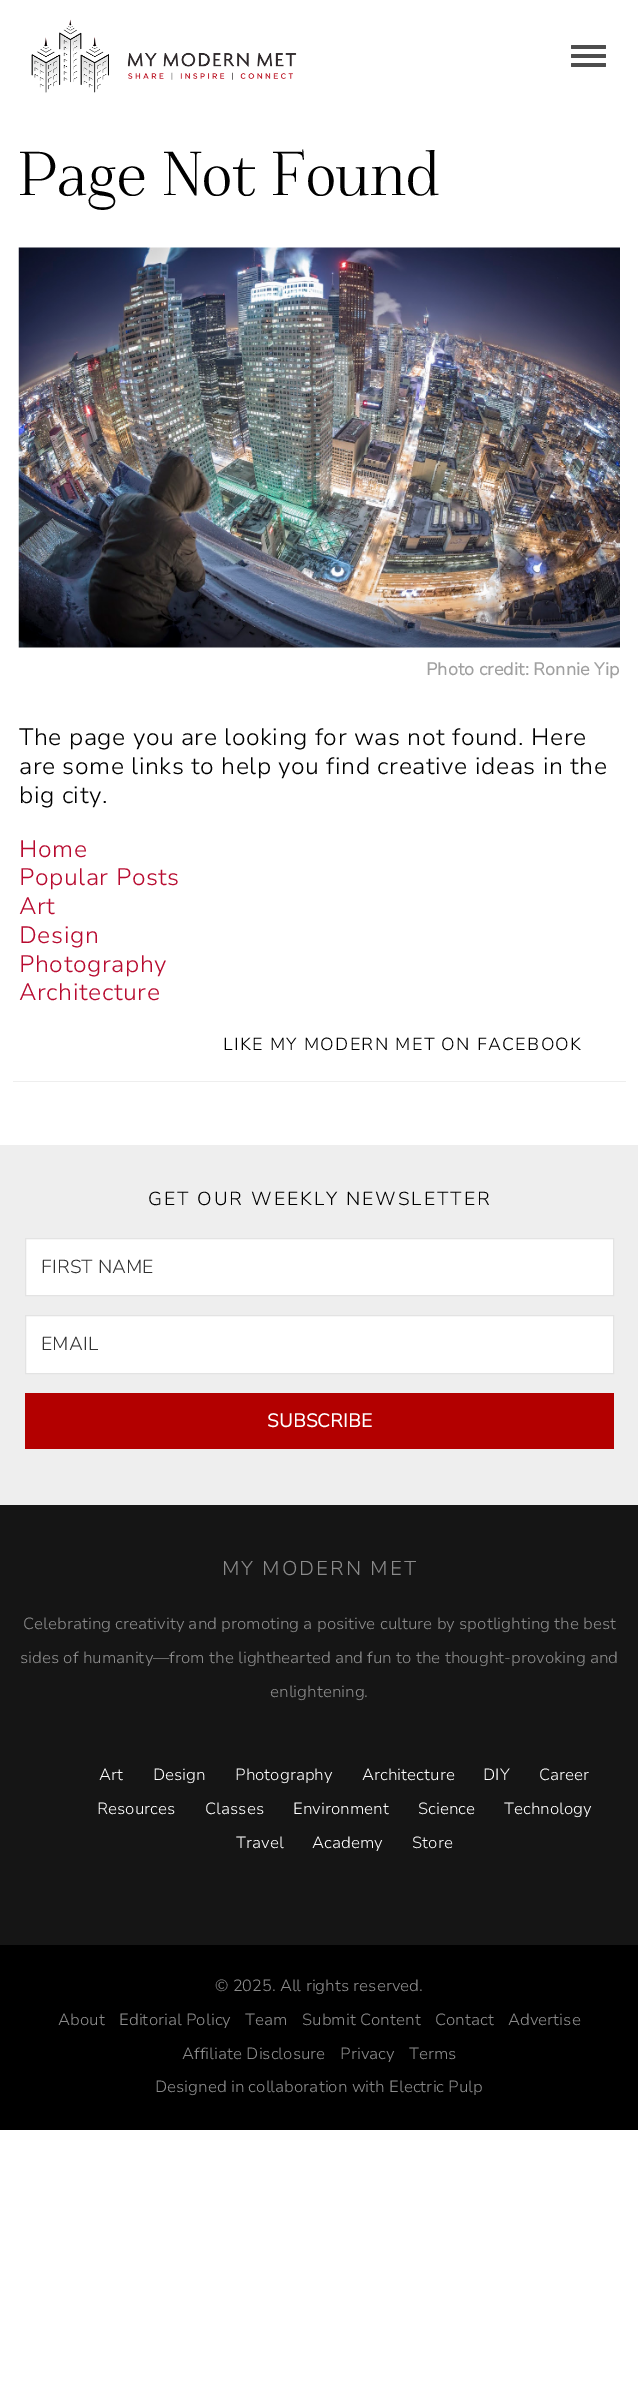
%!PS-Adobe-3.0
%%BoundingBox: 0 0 638 2400
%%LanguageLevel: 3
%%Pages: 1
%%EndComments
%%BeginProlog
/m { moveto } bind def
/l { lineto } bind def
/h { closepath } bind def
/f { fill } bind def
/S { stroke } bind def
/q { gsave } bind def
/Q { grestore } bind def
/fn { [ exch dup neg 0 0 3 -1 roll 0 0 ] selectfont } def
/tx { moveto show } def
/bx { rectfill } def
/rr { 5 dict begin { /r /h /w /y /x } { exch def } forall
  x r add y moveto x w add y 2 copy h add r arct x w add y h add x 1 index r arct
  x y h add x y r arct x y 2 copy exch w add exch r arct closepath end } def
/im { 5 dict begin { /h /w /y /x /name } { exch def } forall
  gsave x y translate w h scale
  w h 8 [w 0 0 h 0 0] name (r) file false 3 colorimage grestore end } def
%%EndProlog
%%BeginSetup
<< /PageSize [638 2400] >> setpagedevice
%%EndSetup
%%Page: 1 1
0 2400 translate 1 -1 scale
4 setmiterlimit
1 setgray
0 0 638 2400 bx
(image0.raw) 31 19 266 74 im
0.302 setgray
571 45 35 4 1 rr f
571 54 35 4 1 rr f
571 63 35 4 1 rr f
/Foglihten-Medium 60 fn
0 setgray
(Page Not Found) 19 195 tx
(image1.raw) 18 247 602 401 im
/NunitoSans-Bold 17.5 fn
0.627 setgray
(Photo credit: Ronnie Yip) 426 675 tx
/NunitoSans-Light 23.75 fn
0 setgray
19 745 m 0.5 0 (The page you are looking for was not found. Here) ashow
19 774 m 0.5 0 (are some links to help you find creative ideas in the) ashow
19 803 m 0.5 0 (big city.) ashow
0.722 0.043 0.188 setrgbcolor
19 857 m 0.5 0 (Home) ashow
19 885 m 0.5 0 (Popular Posts) ashow
19 914 m 0.5 0 (Art) ashow
19 943 m 0.5 0 (Design) ashow
19 972 m 0.5 0 (Photography) ashow
19 1000 m 0.5 0 (Architecture) ashow
0.933 setgray
13 1081 613 1 bx
/NunitoSans-Light 17.5 fn
0 setgray
223 1050 m 1.25 0 (LIKE MY MODERN MET ON FACEBOOK) ashow
0.933 setgray
0 1145 638 360 bx
/NunitoSans-Light 18.75 fn
0 setgray
148 1205 m 1.9 0 (GET OUR WEEKLY NEWSLETTER) ashow
1 setgray
25.5 1238.5 m 613.5 1238.5 l 613.5 1295.5 l 25.5 1295.5 l h q f Q
0.89 setgray
S
0.2 setgray
(FIRST NAME) 41 1273 tx
1 setgray
25.5 1315.5 m 613.5 1315.5 l 613.5 1373.5 l 25.5 1373.5 l h q f Q
0.89 setgray
S
0.2 setgray
(EMAIL) 41 1350 tx
0.702 0 0 setrgbcolor
25 1393 589 56 bx
/NunitoSans-Bold 18.75 fn
1 setgray
(SUBSCRIBE) 267 1427 tx
0.082 setgray
0 1505 638 440 bx
/NunitoSans-Light 20 fn
0.545 setgray
222 1575 m 1.9 0 (MY MODERN MET) ashow
/NunitoSans-Light 16.25 fn
(Celebrating creativity and promoting a positive culture by spotlighting the best) 23 1629 tx
(sides of humanity—from the lighthearted and fun to the thought-provoking and) 20 1663 tx
(enlightening.) 270 1697 tx
1 setgray
(Art) 99 1780 tx
(Design) 153 1780 tx
(Photography) 235 1780 tx
(Architecture) 362 1780 tx
(DIY) 483 1780 tx
(Career) 539 1780 tx
(Resources) 97 1814 tx
(Classes) 205 1814 tx
(Environment) 293 1814 tx
(Science) 418 1814 tx
(Technology) 504 1814 tx
(Travel) 236 1848 tx
(Academy) 312 1848 tx
(Store) 412 1848 tx
0 setgray
0 1945 638 185 bx
0.545 setgray
(© 2025. All rights reserved.) 215 1991 tx
(About) 58 2025 tx
(Editorial Policy) 119 2025 tx
(Team) 245 2025 tx
(Submit Content) 302 2025 tx
(Contact) 435 2025 tx
(Advertise) 508 2025 tx
(Affiliate Disclosure) 182 2059 tx
(Privacy) 340 2059 tx
(Terms) 409 2059 tx
(Designed in collaboration with Electric Pulp) 155 2092 tx
showpage
%%EOF
